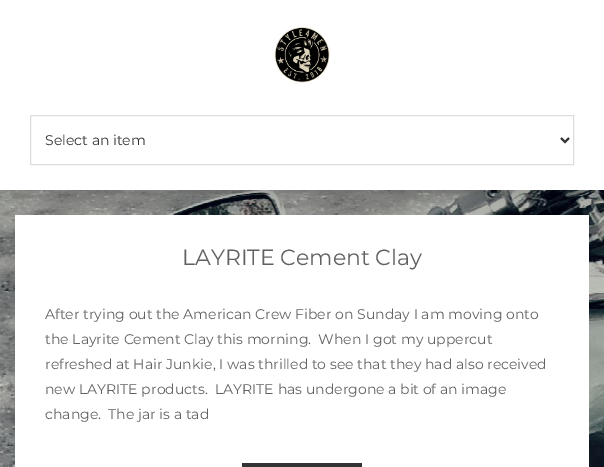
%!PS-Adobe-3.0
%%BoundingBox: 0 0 604 467
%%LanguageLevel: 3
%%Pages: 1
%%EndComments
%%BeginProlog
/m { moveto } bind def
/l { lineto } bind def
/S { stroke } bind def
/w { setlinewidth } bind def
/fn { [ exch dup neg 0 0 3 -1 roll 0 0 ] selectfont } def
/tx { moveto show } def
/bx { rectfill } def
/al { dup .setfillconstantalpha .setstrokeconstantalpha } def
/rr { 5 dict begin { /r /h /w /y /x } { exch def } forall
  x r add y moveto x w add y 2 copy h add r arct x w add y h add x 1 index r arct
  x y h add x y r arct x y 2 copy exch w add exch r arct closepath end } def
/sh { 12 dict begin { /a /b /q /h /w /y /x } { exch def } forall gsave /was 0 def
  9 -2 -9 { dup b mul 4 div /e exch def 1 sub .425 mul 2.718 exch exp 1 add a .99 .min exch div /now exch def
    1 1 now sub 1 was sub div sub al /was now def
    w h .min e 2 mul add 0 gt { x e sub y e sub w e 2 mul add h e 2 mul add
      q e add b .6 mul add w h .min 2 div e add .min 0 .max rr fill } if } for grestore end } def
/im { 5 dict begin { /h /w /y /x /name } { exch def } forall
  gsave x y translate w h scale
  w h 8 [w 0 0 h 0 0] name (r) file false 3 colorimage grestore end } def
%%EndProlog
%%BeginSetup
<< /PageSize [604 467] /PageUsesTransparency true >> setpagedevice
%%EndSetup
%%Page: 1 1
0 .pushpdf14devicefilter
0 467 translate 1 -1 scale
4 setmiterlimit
1 setgray
0 0 604 467 bx
(image0.raw) 0 190 604 277 im
0 setgray
0 4 604 190 0 5 0.1 sh
1 setgray
0 0 604 190 bx
(image1.raw) 274 27 56 56 im
0.867 setgray
30.5 115.5 543 49 rectstroke
0.2 setgray
2 w
561 138 m 565 142 l 569 138 l S
/Montserrat-Regular 14 fn
(Select an item) 45 145 tx
1 setgray
15 215 574 252 bx
/Montserrat-Regular 22 fn
0.38 setgray
(LAYRITE Cement Clay) 182 265 tx
/Montserrat-Regular 14 fn
(After trying out the American Crew Fiber on Sunday I am moving onto) 45 319 tx
(the Layrite Cement Clay this morning.  When I got my uppercut) 45 344 tx
(refreshed at Hair Junkie, I was thrilled to see that they had also received) 45 369 tx
(new LAYRITE products.  LAYRITE has undergone a bit of an image) 45 394 tx
(change.  The jar is a tad) 45 419 tx
0.2 setgray
242 463 120 4 bx
.poppdf14devicefilter showpage
%%EOF
